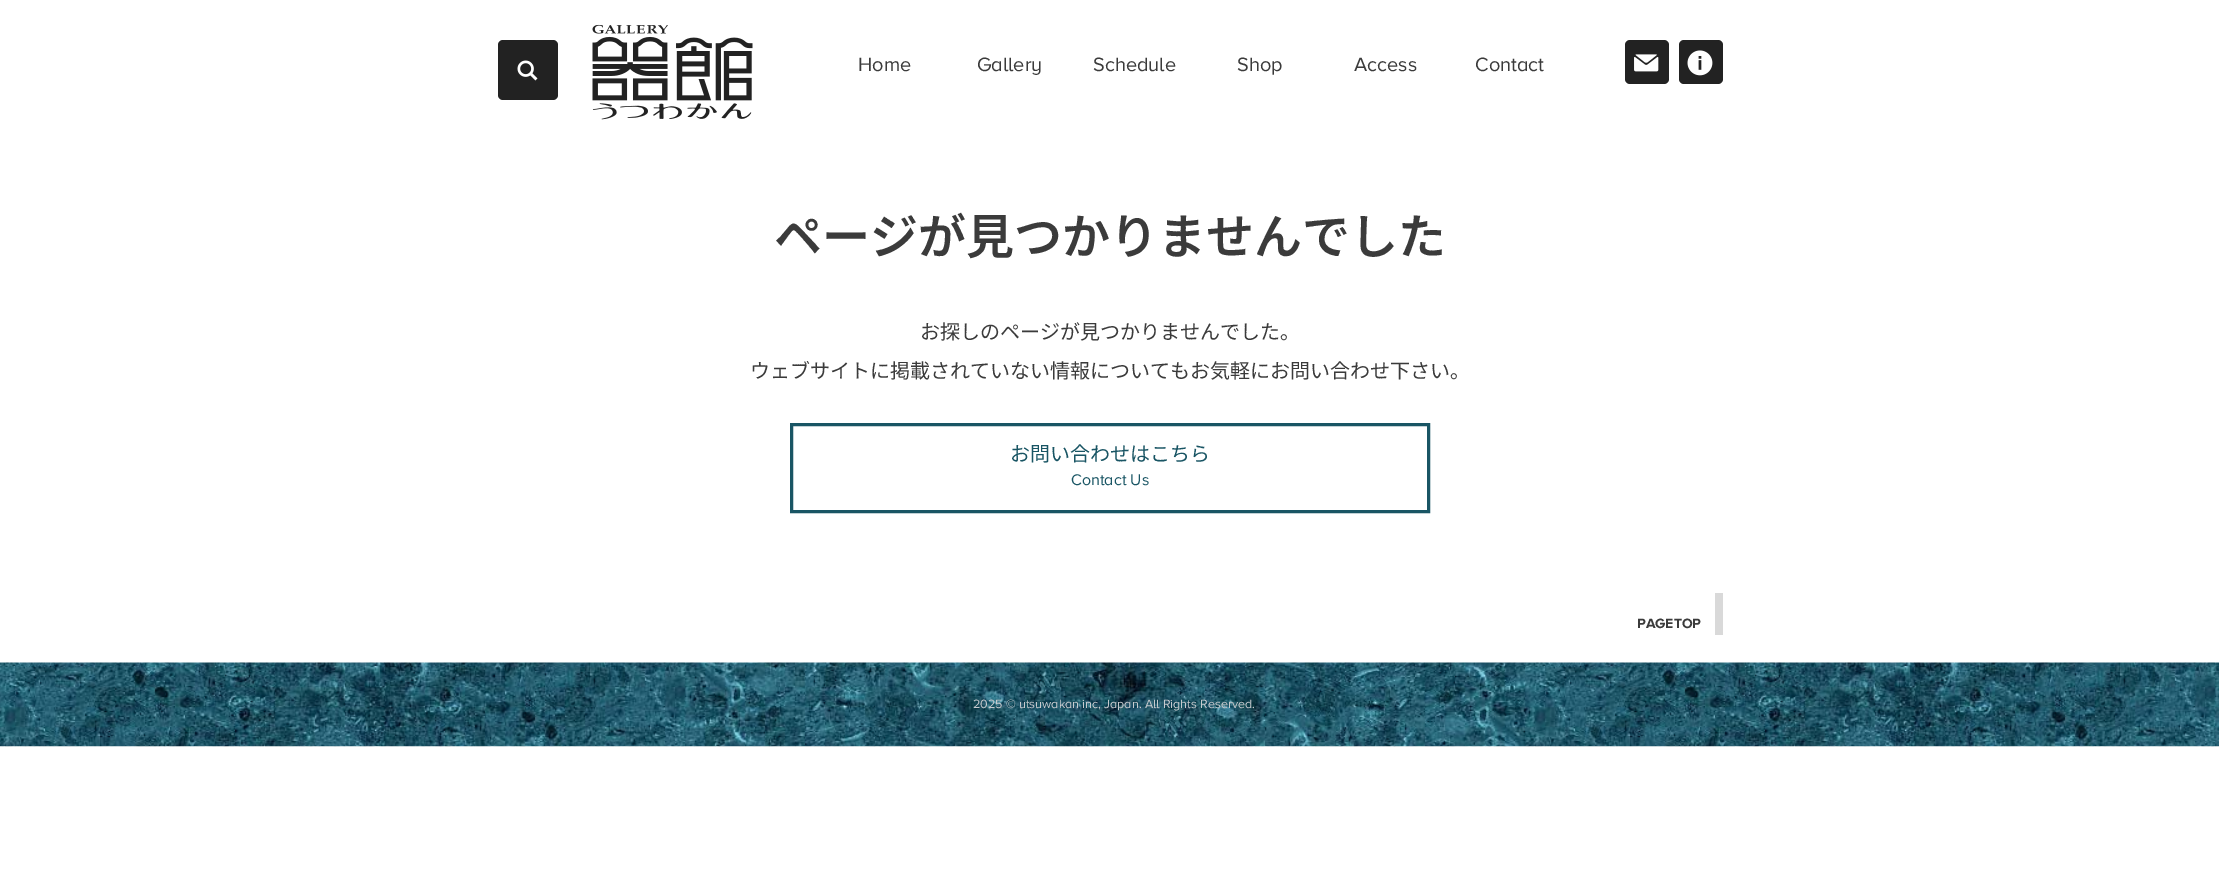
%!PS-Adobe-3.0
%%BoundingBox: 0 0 2219 883
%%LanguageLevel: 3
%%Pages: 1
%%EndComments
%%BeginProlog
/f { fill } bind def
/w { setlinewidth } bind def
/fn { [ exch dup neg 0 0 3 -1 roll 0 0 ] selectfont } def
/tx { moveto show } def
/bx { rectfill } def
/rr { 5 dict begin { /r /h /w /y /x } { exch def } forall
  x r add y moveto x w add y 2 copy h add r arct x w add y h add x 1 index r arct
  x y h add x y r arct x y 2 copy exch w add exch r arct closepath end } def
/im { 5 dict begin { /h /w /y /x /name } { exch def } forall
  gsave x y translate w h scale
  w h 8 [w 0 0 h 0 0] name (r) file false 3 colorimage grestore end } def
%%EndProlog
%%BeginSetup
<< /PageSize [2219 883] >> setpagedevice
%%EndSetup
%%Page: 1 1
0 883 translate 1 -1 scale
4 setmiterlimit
1 setgray
0 0 2219 883 bx
0.133 setgray
498 40 60 60 5 rr f
(image0.raw) 517 60 21 21 im
(image1.raw) 592 24 161 96 im
/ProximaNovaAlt-Regular 20 fn
0.231 setgray
(Home) 858 71 tx
(Gallery) 977 71 tx
(Schedule) 1093 71 tx
(Shop) 1237 71 tx
(Access) 1354 71 tx
(Contact) 1475 71 tx
0.133 setgray
1625 40 44 44 5 rr f
(image2.raw) 1634 54 25 18 im
1679 40 44 44 5 rr f
(image3.raw) 1687 50 26 26 im
/NotoSansJP-SemiBold 48 fn
0.231 setgray
(ページが見つかりませんでした) 774 254 tx
/NotoSansJP-Regular 20 fn
(お探しのページが見つかりませんでした。) 920 339 tx
(ウェブサイトに掲載されていない情報についてもお気軽にお問い合わせ下さい。) 750 378 tx
0.098 0.333 0.392 setrgbcolor
3 w
791.5 424.5 637 87 rectstroke
(お問い合わせはこちら) 1010 461 tx
/ProximaNovaAlt-Regular 16 fn
(Contact Us) 1071 485 tx
/ProximaNovaAlt-Bold 14 fn
0.231 setgray
(PAGETOP) 1637 628 tx
0.851 setgray
1715 593 8 42 bx
(image4.raw) 0 662 2219 85 im
/ProximaNovaAlt-Regular 12.5 fn
0.78 0.792 0.808 setrgbcolor
(2025 © utsuwakan inc, Japan. All Rights Reserved.) 973 708 tx
showpage
%%EOF
